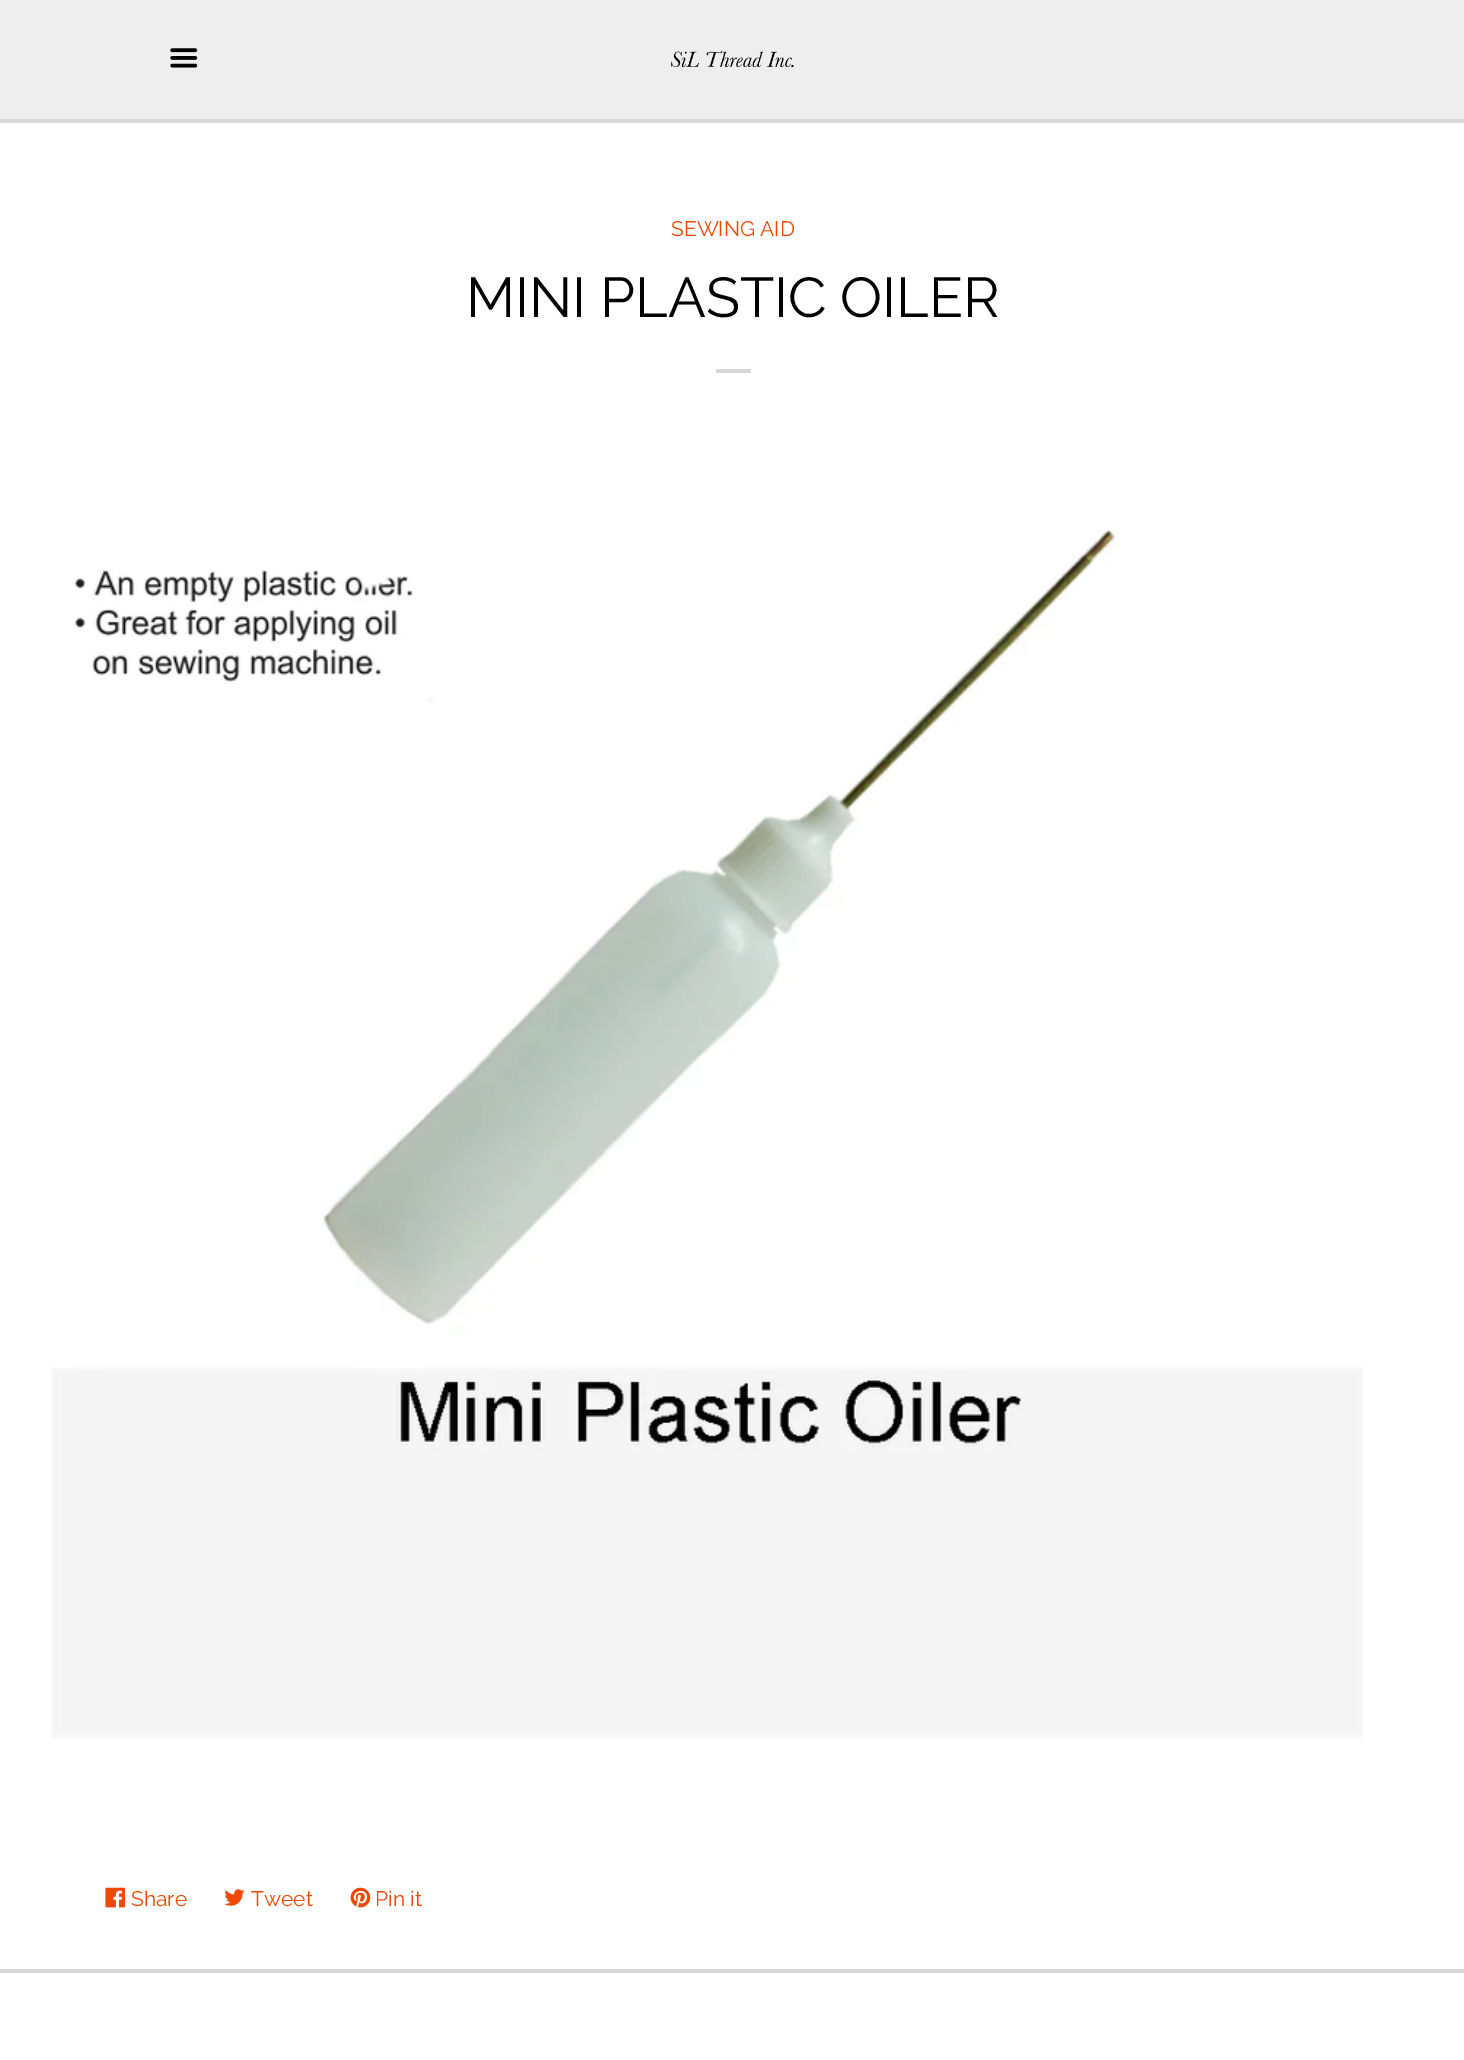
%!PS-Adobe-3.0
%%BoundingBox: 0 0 1464 2060
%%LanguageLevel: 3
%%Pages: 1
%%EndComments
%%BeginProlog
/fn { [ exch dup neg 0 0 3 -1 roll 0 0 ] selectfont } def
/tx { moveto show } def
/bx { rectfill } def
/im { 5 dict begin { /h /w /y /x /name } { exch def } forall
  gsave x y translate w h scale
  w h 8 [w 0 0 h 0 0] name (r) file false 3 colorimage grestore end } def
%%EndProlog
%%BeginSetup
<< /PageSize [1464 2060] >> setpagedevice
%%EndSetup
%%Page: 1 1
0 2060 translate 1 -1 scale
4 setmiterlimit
0.933 setgray
0 0 1464 2060 bx
0.843 setgray
0 119 1464 4 bx
(image0.raw) 170 48 28 20 im
(image1.raw) 671 51 123 17 im
1 setgray
0 123 1464 1937 bx
/Raleway-Thin 21 fn
0.937 0.286 0.012 setrgbcolor
(SEWING AID) 671 236 tx
/Raleway-Thin 56 fn
0 setgray
(MINI PLASTIC OILER) 466 317 tx
0.843 setgray
716 369 35 4 bx
(image2.raw) 51 530 1312 1208 im
(image3.raw) 105 1887 21 21 im
/Raleway-Thin 21 fn
0.937 0.286 0.012 setrgbcolor
(Share) 131 1906 tx
(image4.raw) 224 1889 21 17 im
(Tweet) 251 1906 tx
(image5.raw) 350 1887 21 21 im
(Pin it) 375 1906 tx
0.843 setgray
0 1969 1464 4 bx
showpage
%%EOF
